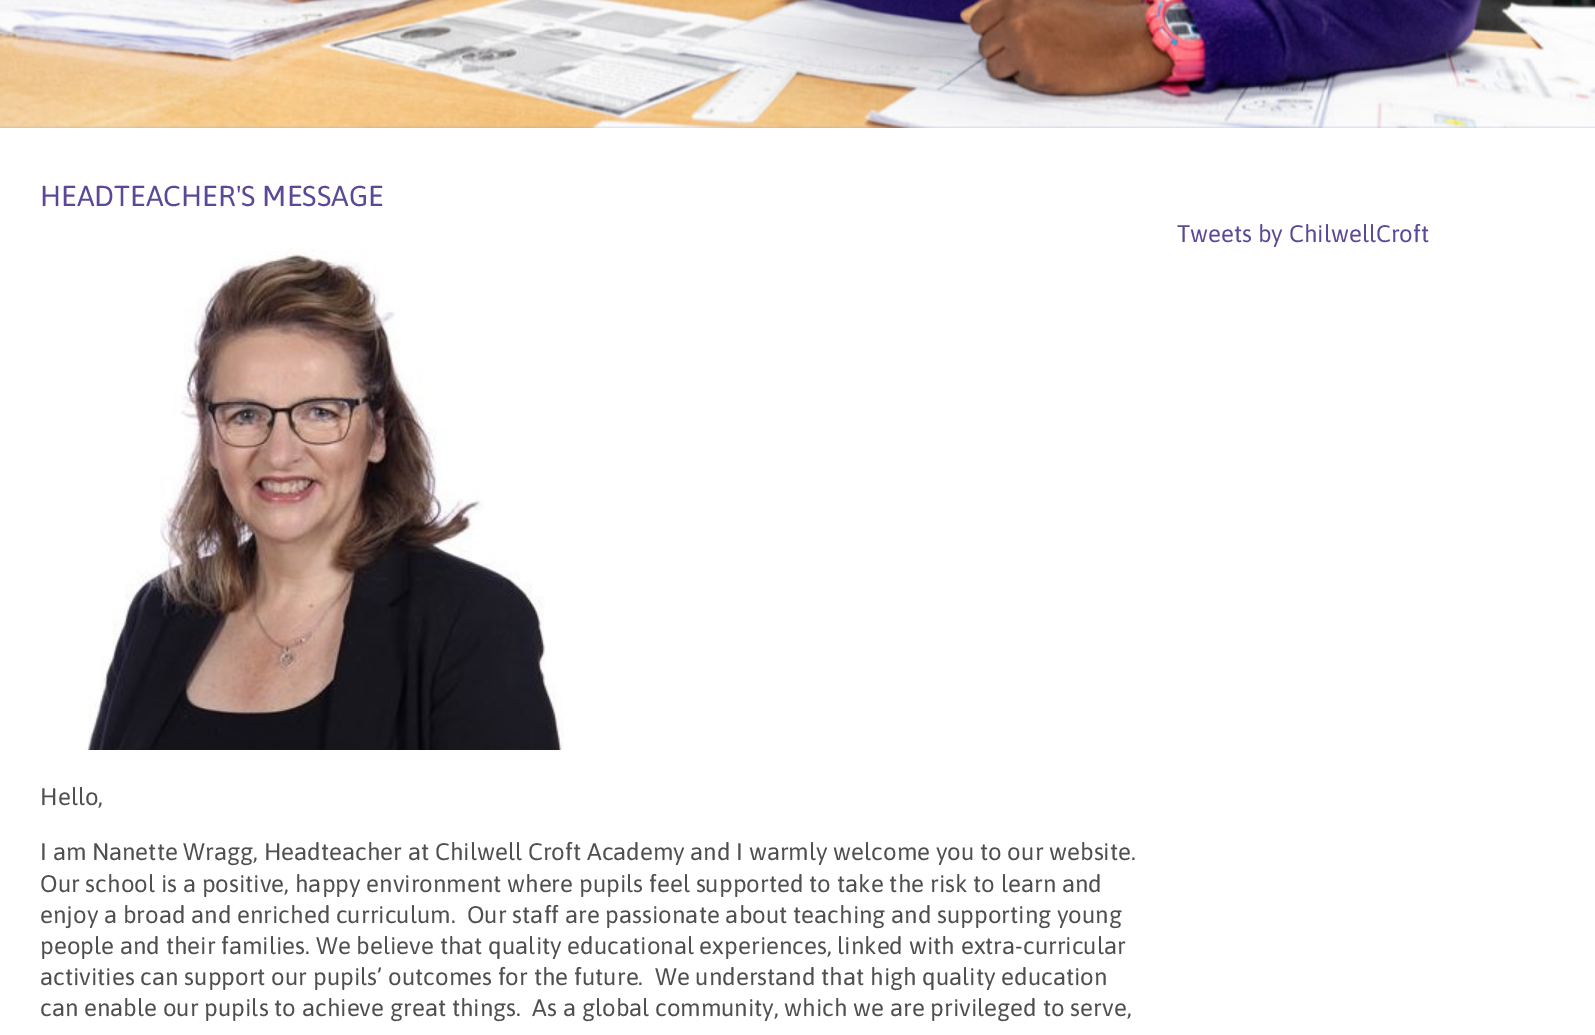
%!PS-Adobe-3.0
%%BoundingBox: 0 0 1595 1035
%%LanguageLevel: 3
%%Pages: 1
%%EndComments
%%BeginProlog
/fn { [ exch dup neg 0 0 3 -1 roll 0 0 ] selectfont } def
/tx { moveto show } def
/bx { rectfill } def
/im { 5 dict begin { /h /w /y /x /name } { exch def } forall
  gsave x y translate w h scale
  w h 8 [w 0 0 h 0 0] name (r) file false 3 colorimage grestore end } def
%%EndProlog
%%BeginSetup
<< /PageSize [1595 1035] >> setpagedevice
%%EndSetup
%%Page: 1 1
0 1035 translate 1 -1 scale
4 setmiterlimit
1 setgray
0 0 1595 1035 bx
(image0.raw) 0 0 1595 128 im
/Asap-Regular 28.75 fn
0.361 0.282 0.588 setrgbcolor
(HEADTEACHER'S MESSAGE) 40 206 tx
(image1.raw) 86 248 478 502 im
/Asap-Regular 24 fn
0.31 setgray
(Hello,) 40 805 tx
(I am Nanette Wragg, Headteacher at Chilwell Croft Academy and I warmly welcome you to our website.) 40 860 tx
(Our school is a positive, happy environment where pupils feel supported to take the risk to learn and) 40 892 tx
(enjoy a broad and enriched curriculum.  Our staff are passionate about teaching and supporting young) 40 923 tx
(people and their families. We believe that quality educational experiences, linked with extra-curricular) 40 954 tx
(activities can support our pupils’ outcomes for the future.  We understand that high quality education) 40 985 tx
(can enable our pupils to achieve great things.  As a global community, which we are privileged to serve,) 40 1016 tx
0.361 0.282 0.588 setrgbcolor
(Tweets by ChilwellCroft) 1177 242 tx
showpage
%%EOF
